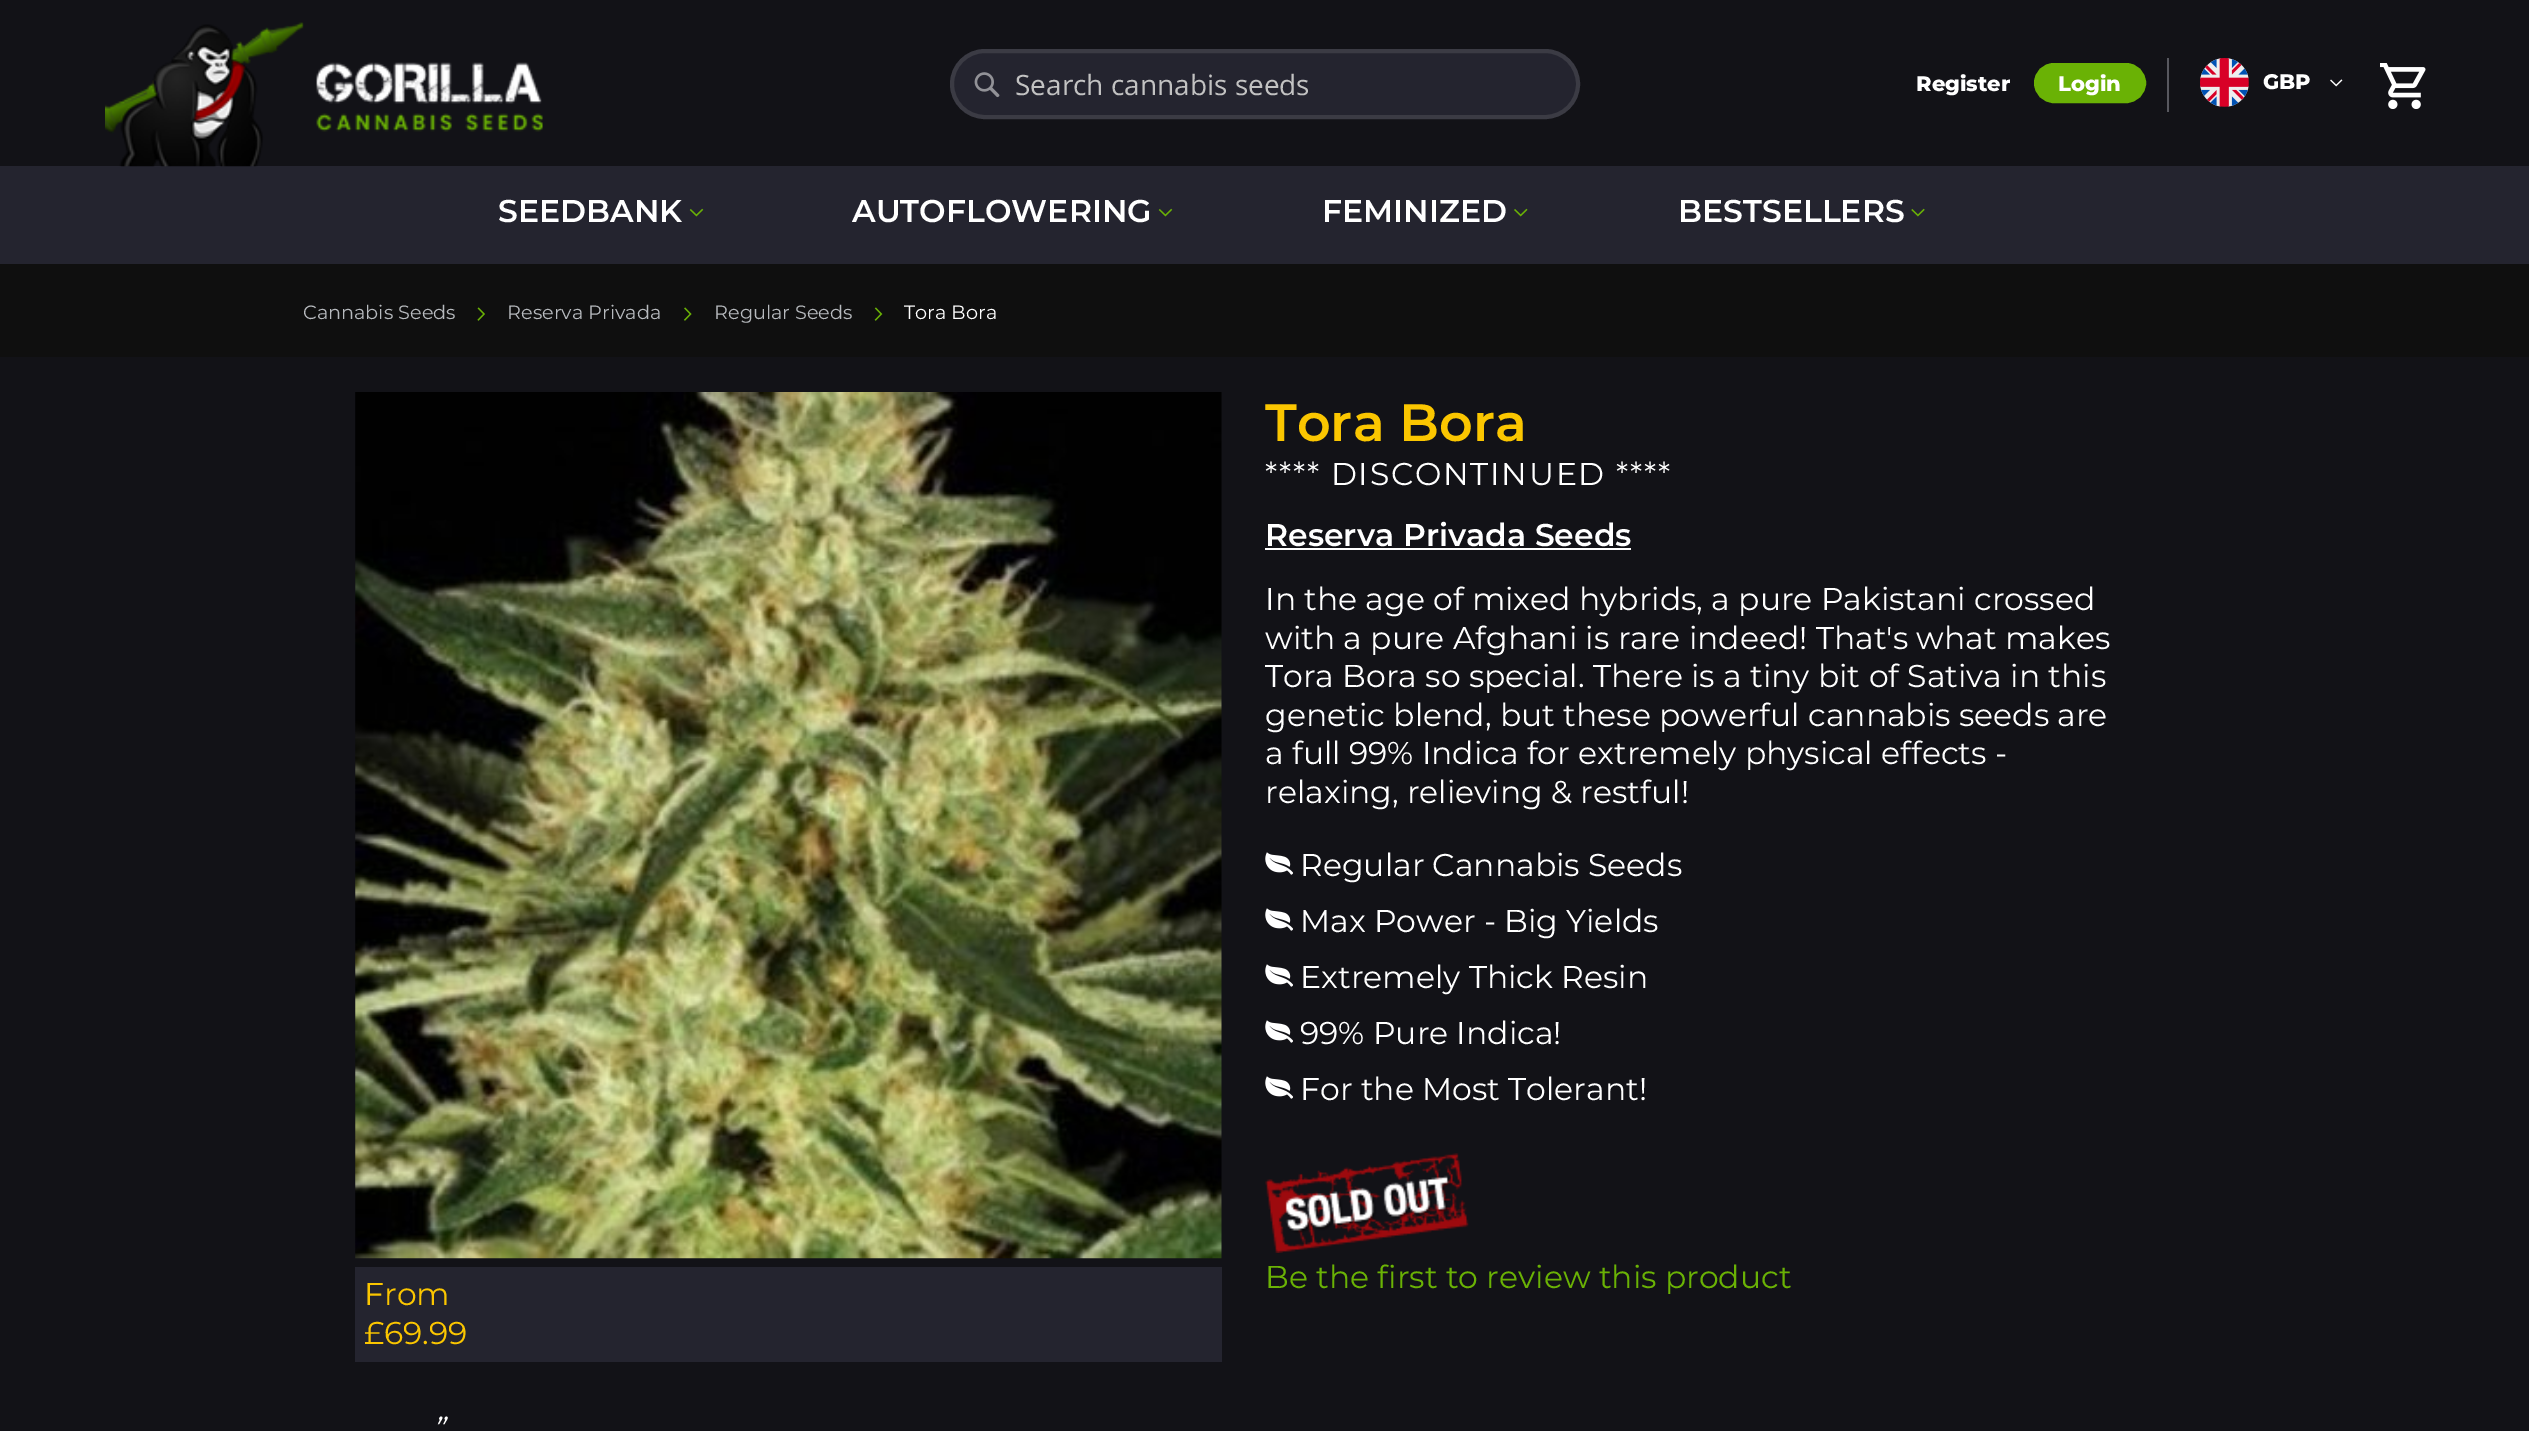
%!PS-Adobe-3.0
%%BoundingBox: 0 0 2529 1431
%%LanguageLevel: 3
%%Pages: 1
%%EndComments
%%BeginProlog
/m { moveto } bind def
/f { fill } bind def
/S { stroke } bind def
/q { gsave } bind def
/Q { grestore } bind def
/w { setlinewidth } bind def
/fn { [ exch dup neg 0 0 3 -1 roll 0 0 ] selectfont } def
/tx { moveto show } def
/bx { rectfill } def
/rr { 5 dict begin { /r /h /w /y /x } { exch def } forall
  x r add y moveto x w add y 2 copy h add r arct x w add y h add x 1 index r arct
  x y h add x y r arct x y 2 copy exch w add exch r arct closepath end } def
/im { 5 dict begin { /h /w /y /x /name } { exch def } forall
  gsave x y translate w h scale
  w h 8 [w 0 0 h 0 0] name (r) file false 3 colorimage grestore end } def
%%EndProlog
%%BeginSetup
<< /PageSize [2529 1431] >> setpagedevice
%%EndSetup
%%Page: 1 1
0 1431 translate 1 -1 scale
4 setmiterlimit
0.071 0.071 0.09 setrgbcolor
0 0 2529 1431 bx
0.141 0.141 0.184 setrgbcolor
0 166 2529 98 bx
(image0.raw) 105 22 438 145 im
952 51 626 66 33 rr q f Q
0.231 0.231 0.267 setrgbcolor
4 w
S
(image1.raw) 974 72 26 26 im
/OpenSans-Regular 28 fn
0.761 setgray
(Search cannabis seeds) 1015 95 tx
/Montserrat-ExtraBold 21 fn
1 setgray
(Register) 1916 91 tx
0.416 0.698 0.02 setrgbcolor
2036 65 108 36 18 rr q f Q
S
1 setgray
(Login) 2058 91 tx
0.345 0.345 0.373 setrgbcolor
2167 58 2 54 bx
(image2.raw) 2200 58 49 49 im
1 setgray
(GBP) 2263 89 tx
(image3.raw) 2330 79 13 8 im
(image4.raw) 2380 63 46 46 im
/Montserrat-SemiBold 31.5 fn
(SEEDBANK) 498 222 tx
(image5.raw) 689 208 15 9 im
(AUTOFLOWERING) 852 222 tx
(image5.raw) 1158 208 15 9 im
(FEMINIZED) 1322 222 tx
(image6.raw) 1514 208 14 9 im
(BESTSELLERS) 1678 222 tx
(image7.raw) 1911 208 14 9 im
0.059 setgray
0 264 2529 93 bx
/Montserrat-Regular 19.25 fn
0.718 0.729 0.745 setrgbcolor
(Cannabis Seeds) 303 319 tx
(image8.raw) 477 307 8 14 im
(Reserva Privada) 507 319 tx
(image9.raw) 684 307 8 14 im
(Regular Seeds) 714 319 tx
(image10.raw) 874 307 9 14 im
1 setgray
(Tora Bora) 904 319 tx
/Montserrat-SemiBold 52.5 fn
0.984 0.776 0 setrgbcolor
(Tora Bora) 1265 441 tx
/Montserrat-Regular 31.5 fn
1 setgray
1265 485 m 1.75 0 (**** DISCONTINUED ****) ashow
/Montserrat-SemiBold 31.5 fn
(Reserva Privada Seeds) 1265 546 tx
1265 548 366 2 bx
/Montserrat-Regular 31.5 fn
(In the age of mixed hybrids, a pure Pakistani crossed) 1265 610 tx
(with a pure Afghani is rare indeed! That's what makes) 1265 649 tx
(Tora Bora so special. There is a tiny bit of Sativa in this) 1265 687 tx
(genetic blend, but these powerful cannabis seeds are) 1265 726 tx
(a full 99% Indica for extremely physical effects -) 1265 764 tx
(relaxing, relieving & restful!) 1265 803 tx
(image11.raw) 1265 852 28 23 im
(Regular Cannabis Seeds) 1300 876 tx
(image11.raw) 1265 908 28 23 im
(Max Power - Big Yields) 1300 932 tx
(image11.raw) 1265 964 28 23 im
(Extremely Thick Resin) 1300 988 tx
(image11.raw) 1265 1020 28 23 im
(99% Pure Indica!) 1300 1044 tx
(image11.raw) 1265 1076 28 23 im
(For the Most Tolerant!) 1300 1100 tx
(image12.raw) 1265 1153 204 100 im
0.416 0.698 0.02 setrgbcolor
(Be the first to review this product) 1265 1288 tx
(image13.raw) 355 392 867 867 im
0.141 0.141 0.184 setrgbcolor
355 1267 867 95 bx
0.984 0.776 0 setrgbcolor
(From) 364 1305 tx
(£69.99) 364 1344 tx
/Montserrat-Italic 31.5 fn
1 setgray
(”) 432 1440 tx
showpage
%%EOF
